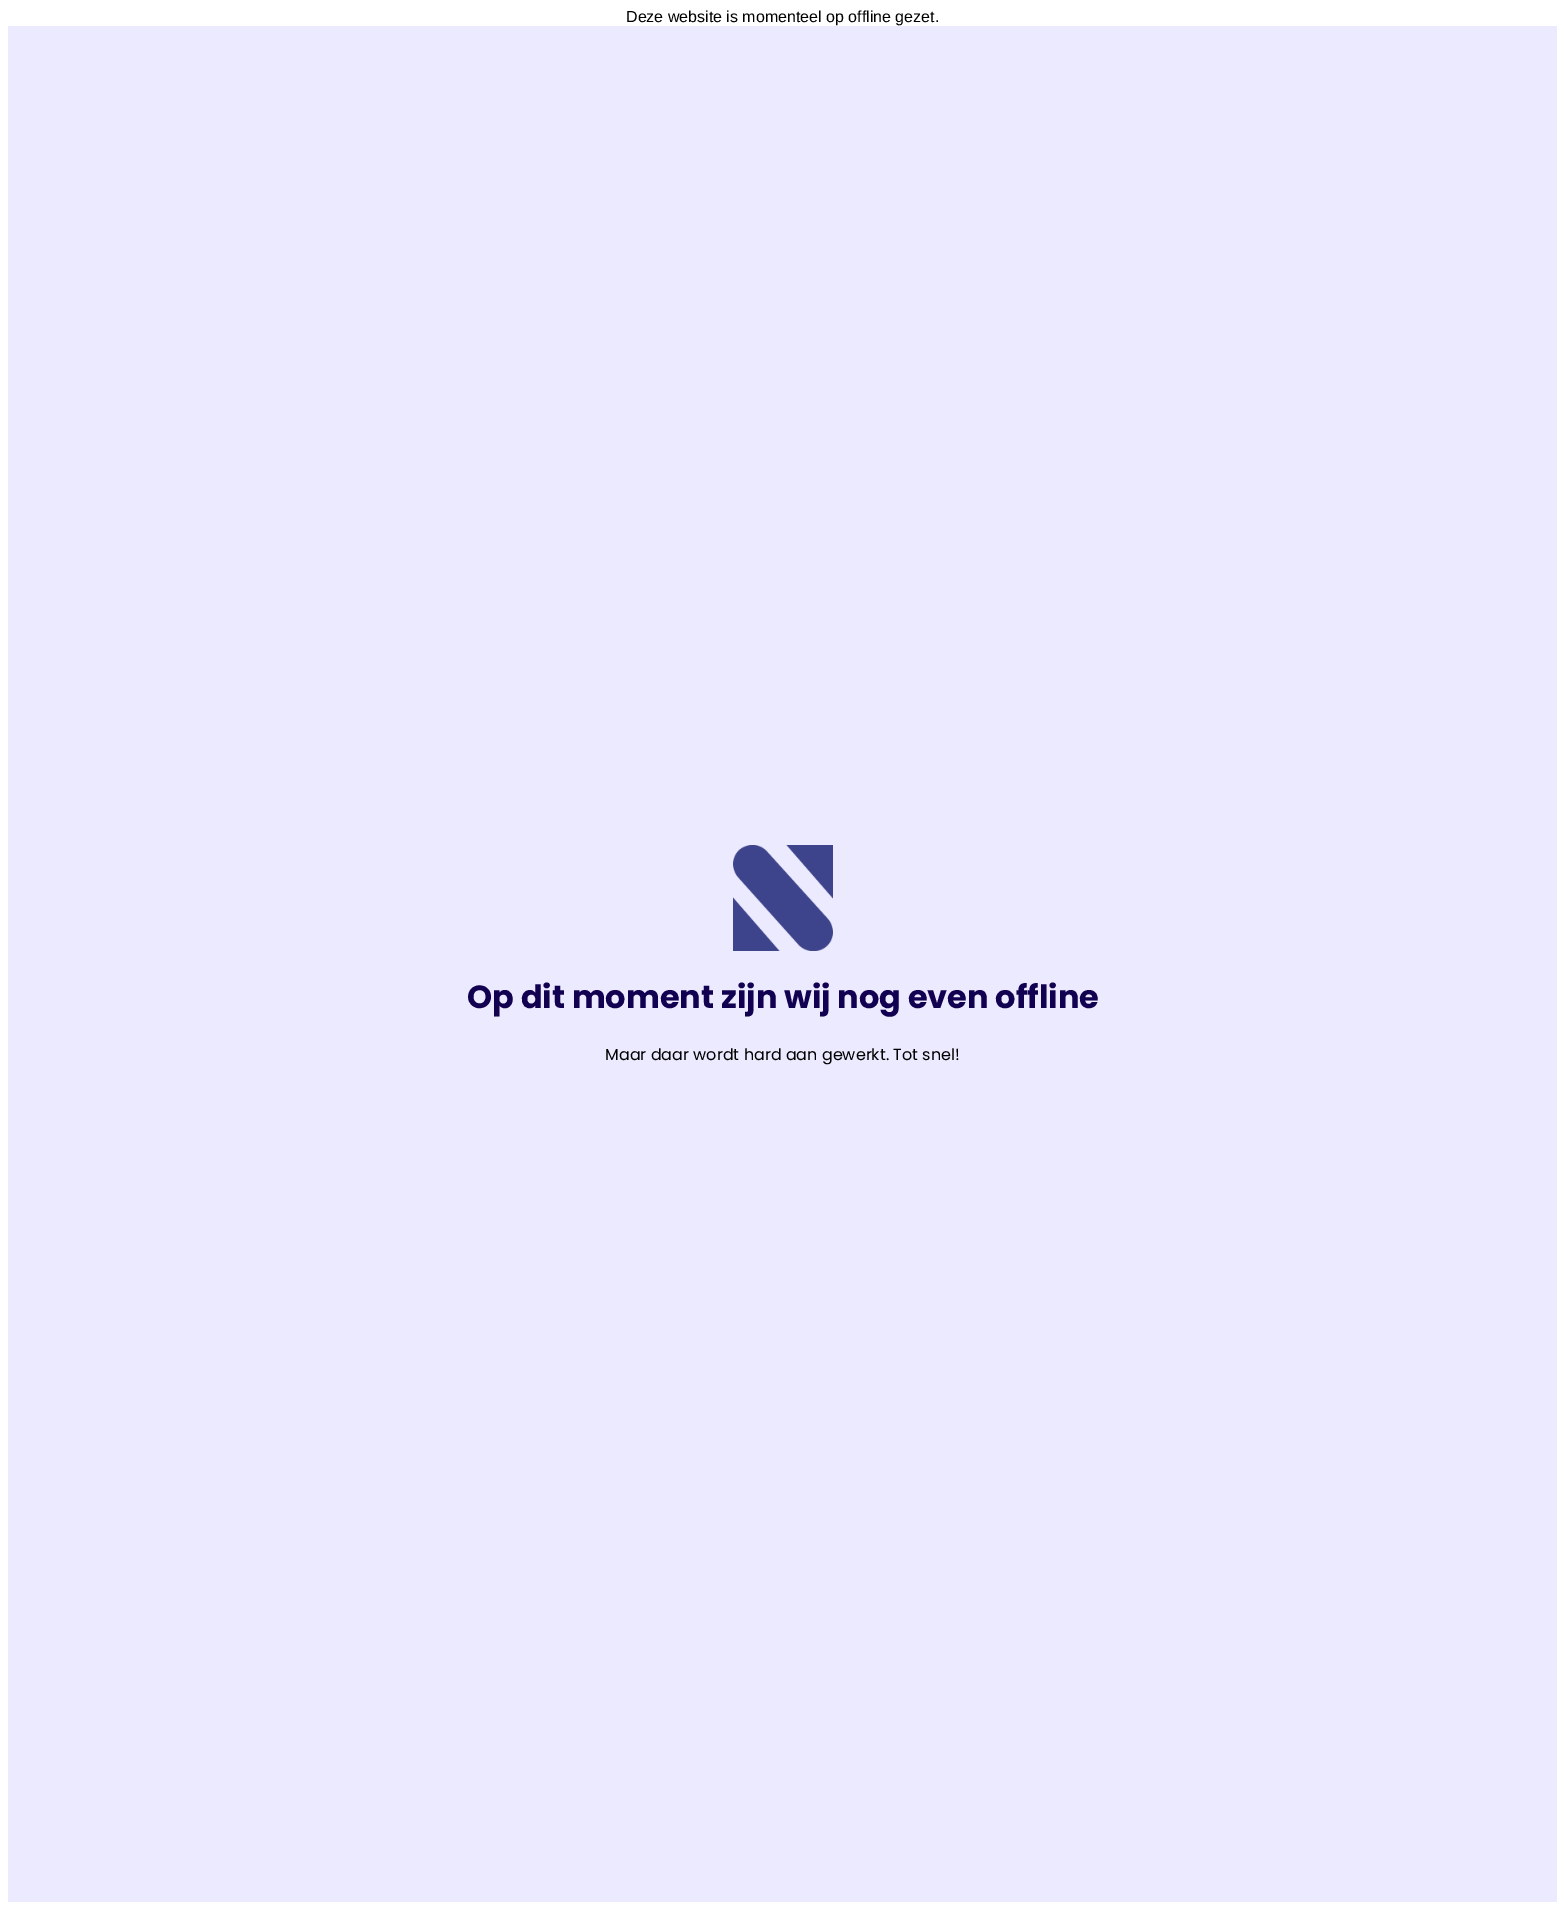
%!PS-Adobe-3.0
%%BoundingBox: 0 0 1565 1914
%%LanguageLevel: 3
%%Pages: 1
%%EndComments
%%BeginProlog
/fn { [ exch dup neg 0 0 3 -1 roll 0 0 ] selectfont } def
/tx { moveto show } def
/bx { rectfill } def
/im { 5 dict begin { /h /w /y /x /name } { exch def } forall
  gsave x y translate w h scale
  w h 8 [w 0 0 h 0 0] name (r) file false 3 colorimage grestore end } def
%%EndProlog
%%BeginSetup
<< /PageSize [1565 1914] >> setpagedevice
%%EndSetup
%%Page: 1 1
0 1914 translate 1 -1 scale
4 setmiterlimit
1 setgray
0 0 1565 1914 bx
/LiberationSans-Regular 16 fn
0 setgray
(Deze website is momenteel op offline gezet.) 626 22 tx
0.922 0.918 0.996 setrgbcolor
8 26 1549 1876 bx
(image0.raw) 733 845 100 106 im
/Poppins-Bold 32 fn
0.071 0 0.314 setrgbcolor
(Op dit moment zijn wij nog even offline) 467 1008 tx
/Poppins-Regular 16 fn
0 setgray
(Maar daar wordt hard aan gewerkt. Tot snel!) 605 1060 tx
showpage
%%EOF
